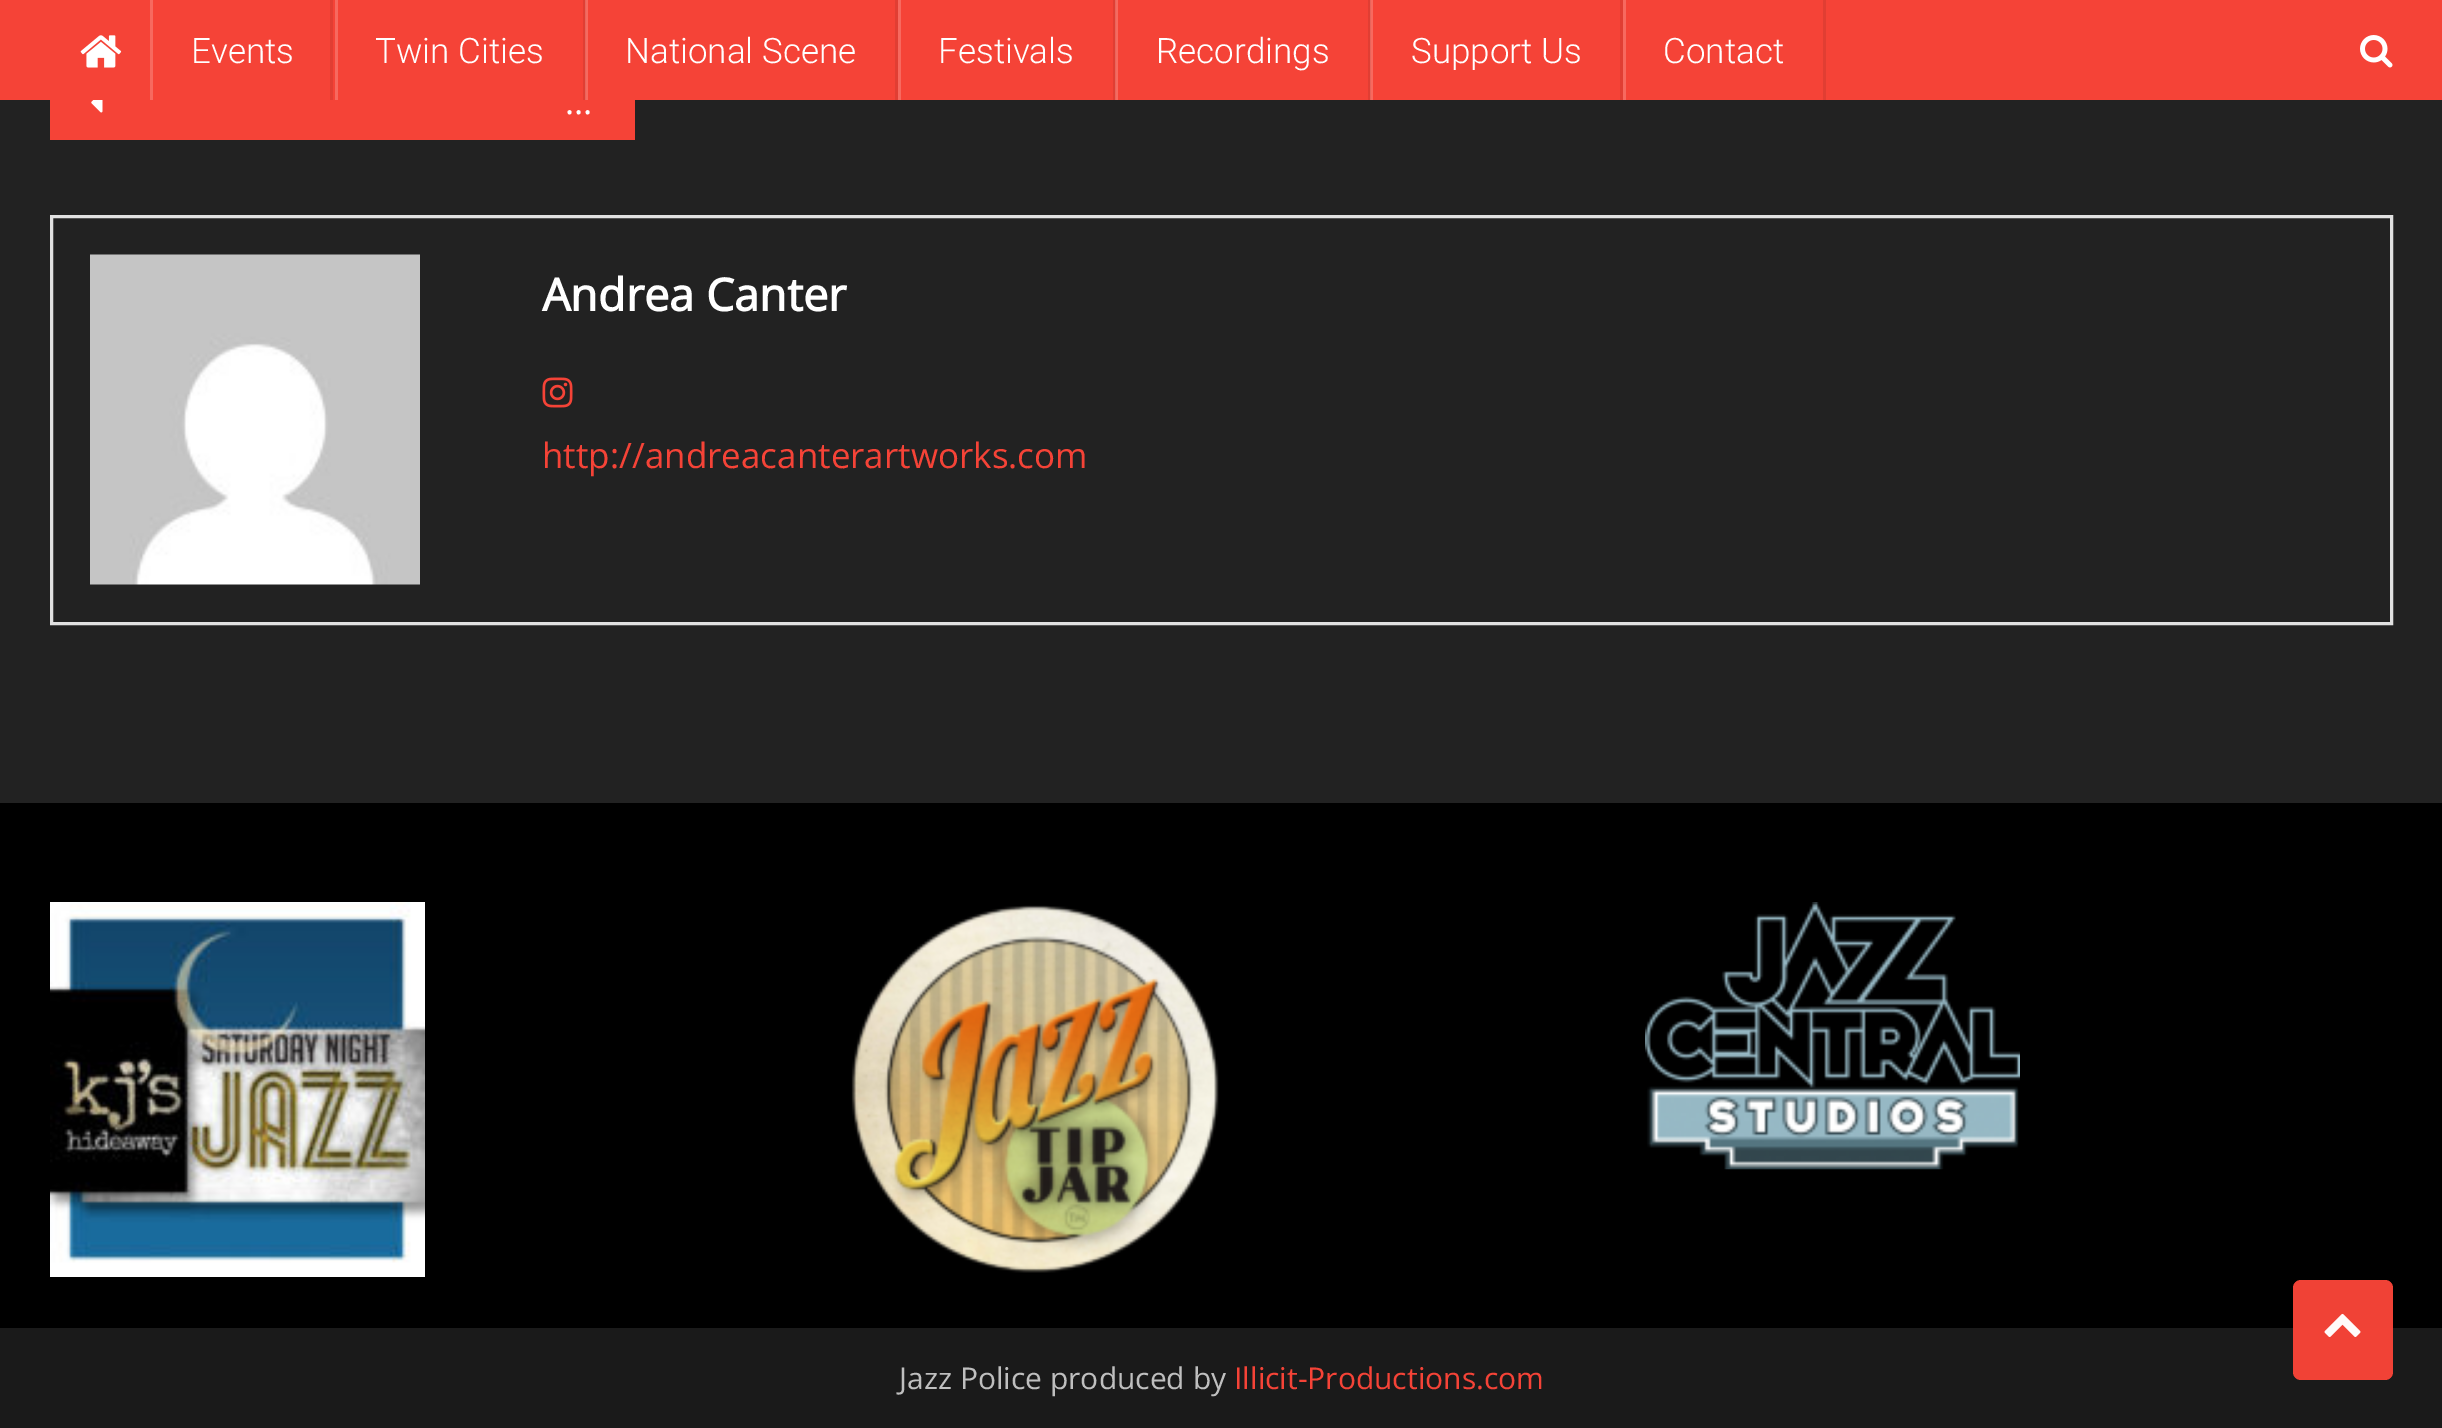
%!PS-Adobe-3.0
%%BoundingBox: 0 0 2442 1428
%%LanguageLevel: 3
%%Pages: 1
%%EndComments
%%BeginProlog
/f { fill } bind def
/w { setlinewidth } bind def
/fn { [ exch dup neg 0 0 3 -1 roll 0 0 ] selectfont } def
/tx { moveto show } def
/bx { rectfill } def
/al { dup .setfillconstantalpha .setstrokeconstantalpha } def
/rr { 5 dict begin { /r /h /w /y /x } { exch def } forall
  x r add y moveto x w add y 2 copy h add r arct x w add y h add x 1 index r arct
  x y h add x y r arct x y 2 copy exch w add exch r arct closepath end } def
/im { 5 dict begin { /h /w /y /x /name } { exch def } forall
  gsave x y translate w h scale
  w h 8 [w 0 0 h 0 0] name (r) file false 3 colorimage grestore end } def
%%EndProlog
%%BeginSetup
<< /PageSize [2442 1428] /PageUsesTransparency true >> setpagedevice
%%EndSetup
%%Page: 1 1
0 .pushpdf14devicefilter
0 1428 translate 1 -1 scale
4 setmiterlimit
0.133 setgray
0 0 2442 1428 bx
0.961 0.263 0.216 setrgbcolor
0 0 2442 100 bx
0.969 0.412 0.373 setrgbcolor
1371 0 2 100 bx
1116 0 2 100 bx
586 0 2 100 bx
(image0.raw) 80 35 42 33 im
0.882 0.243 0.2 setrgbcolor
330 0 3 100 bx
0.969 0.412 0.373 setrgbcolor
150 0 3 100 bx
/Roboto-Light 35 fn
1 setgray
(Events) 191 63 tx
0.882 0.243 0.2 setrgbcolor
583 0 2 100 bx
0.906 0.396 0.361 setrgbcolor
585 0 1 100 bx
0.969 0.412 0.373 setrgbcolor
335 0 3 100 bx
1 setgray
(Twin Cities) 375 63 tx
0.882 0.243 0.2 setrgbcolor
895 0 3 100 bx
1 setgray
(National Scene) 625 63 tx
0.882 0.243 0.2 setrgbcolor
1113 0 2 100 bx
0.906 0.396 0.361 setrgbcolor
1115 0 1 100 bx
0.969 0.412 0.373 setrgbcolor
898 0 3 100 bx
1 setgray
(Festivals) 938 63 tx
0.882 0.243 0.2 setrgbcolor
1368 0 2 100 bx
0.906 0.396 0.361 setrgbcolor
1370 0 1 100 bx
1 setgray
(Recordings) 1156 63 tx
0.882 0.243 0.2 setrgbcolor
1620 0 3 100 bx
1 setgray
(Support Us) 1411 63 tx
0.882 0.243 0.2 setrgbcolor
1823 0 3 100 bx
0.969 0.412 0.373 setrgbcolor
1623 0 3 100 bx
1 setgray
(Contact) 1663 63 tx
(image1.raw) 2360 35 33 33 im
0.961 0.263 0.216 setrgbcolor
50 100 585 40 bx
(image2.raw) 91 100 12 13 im
/OpenSans-Regular 35 fn
1 setgray
(…) 565 114 tx
0.882 setgray
3 w
51.5 216.5 2340 407 rectstroke
(image3.raw) 90 254 330 331 im
/OpenSans-Bold 45 fn
1 setgray
(Andrea Canter) 542 311 tx
(image4.raw) 542 377 31 31 im
/OpenSans-Regular 35 fn
0.961 0.263 0.216 setrgbcolor
(http://andreacanterartworks.com) 542 468 tx
0 setgray
0 803 2442 525 bx
(image5.raw) 50 902 375 375 im
(image6.raw) 851 905 368 368 im
(image7.raw) 1645 902 375 268 im
0.102 setgray
0 1328 2442 100 bx
/OpenSans-Regular 30 fn
0.749 setgray
(Jazz Police produced by) 899 1389 tx
0.961 0.263 0.216 setrgbcolor
(Illicit-Productions.com) 1234 1389 tx
0.98 al
2293 1280 100 100 8 rr f
1 al
(image8.raw) 2324 1313 37 24 im
.poppdf14devicefilter showpage
%%EOF
